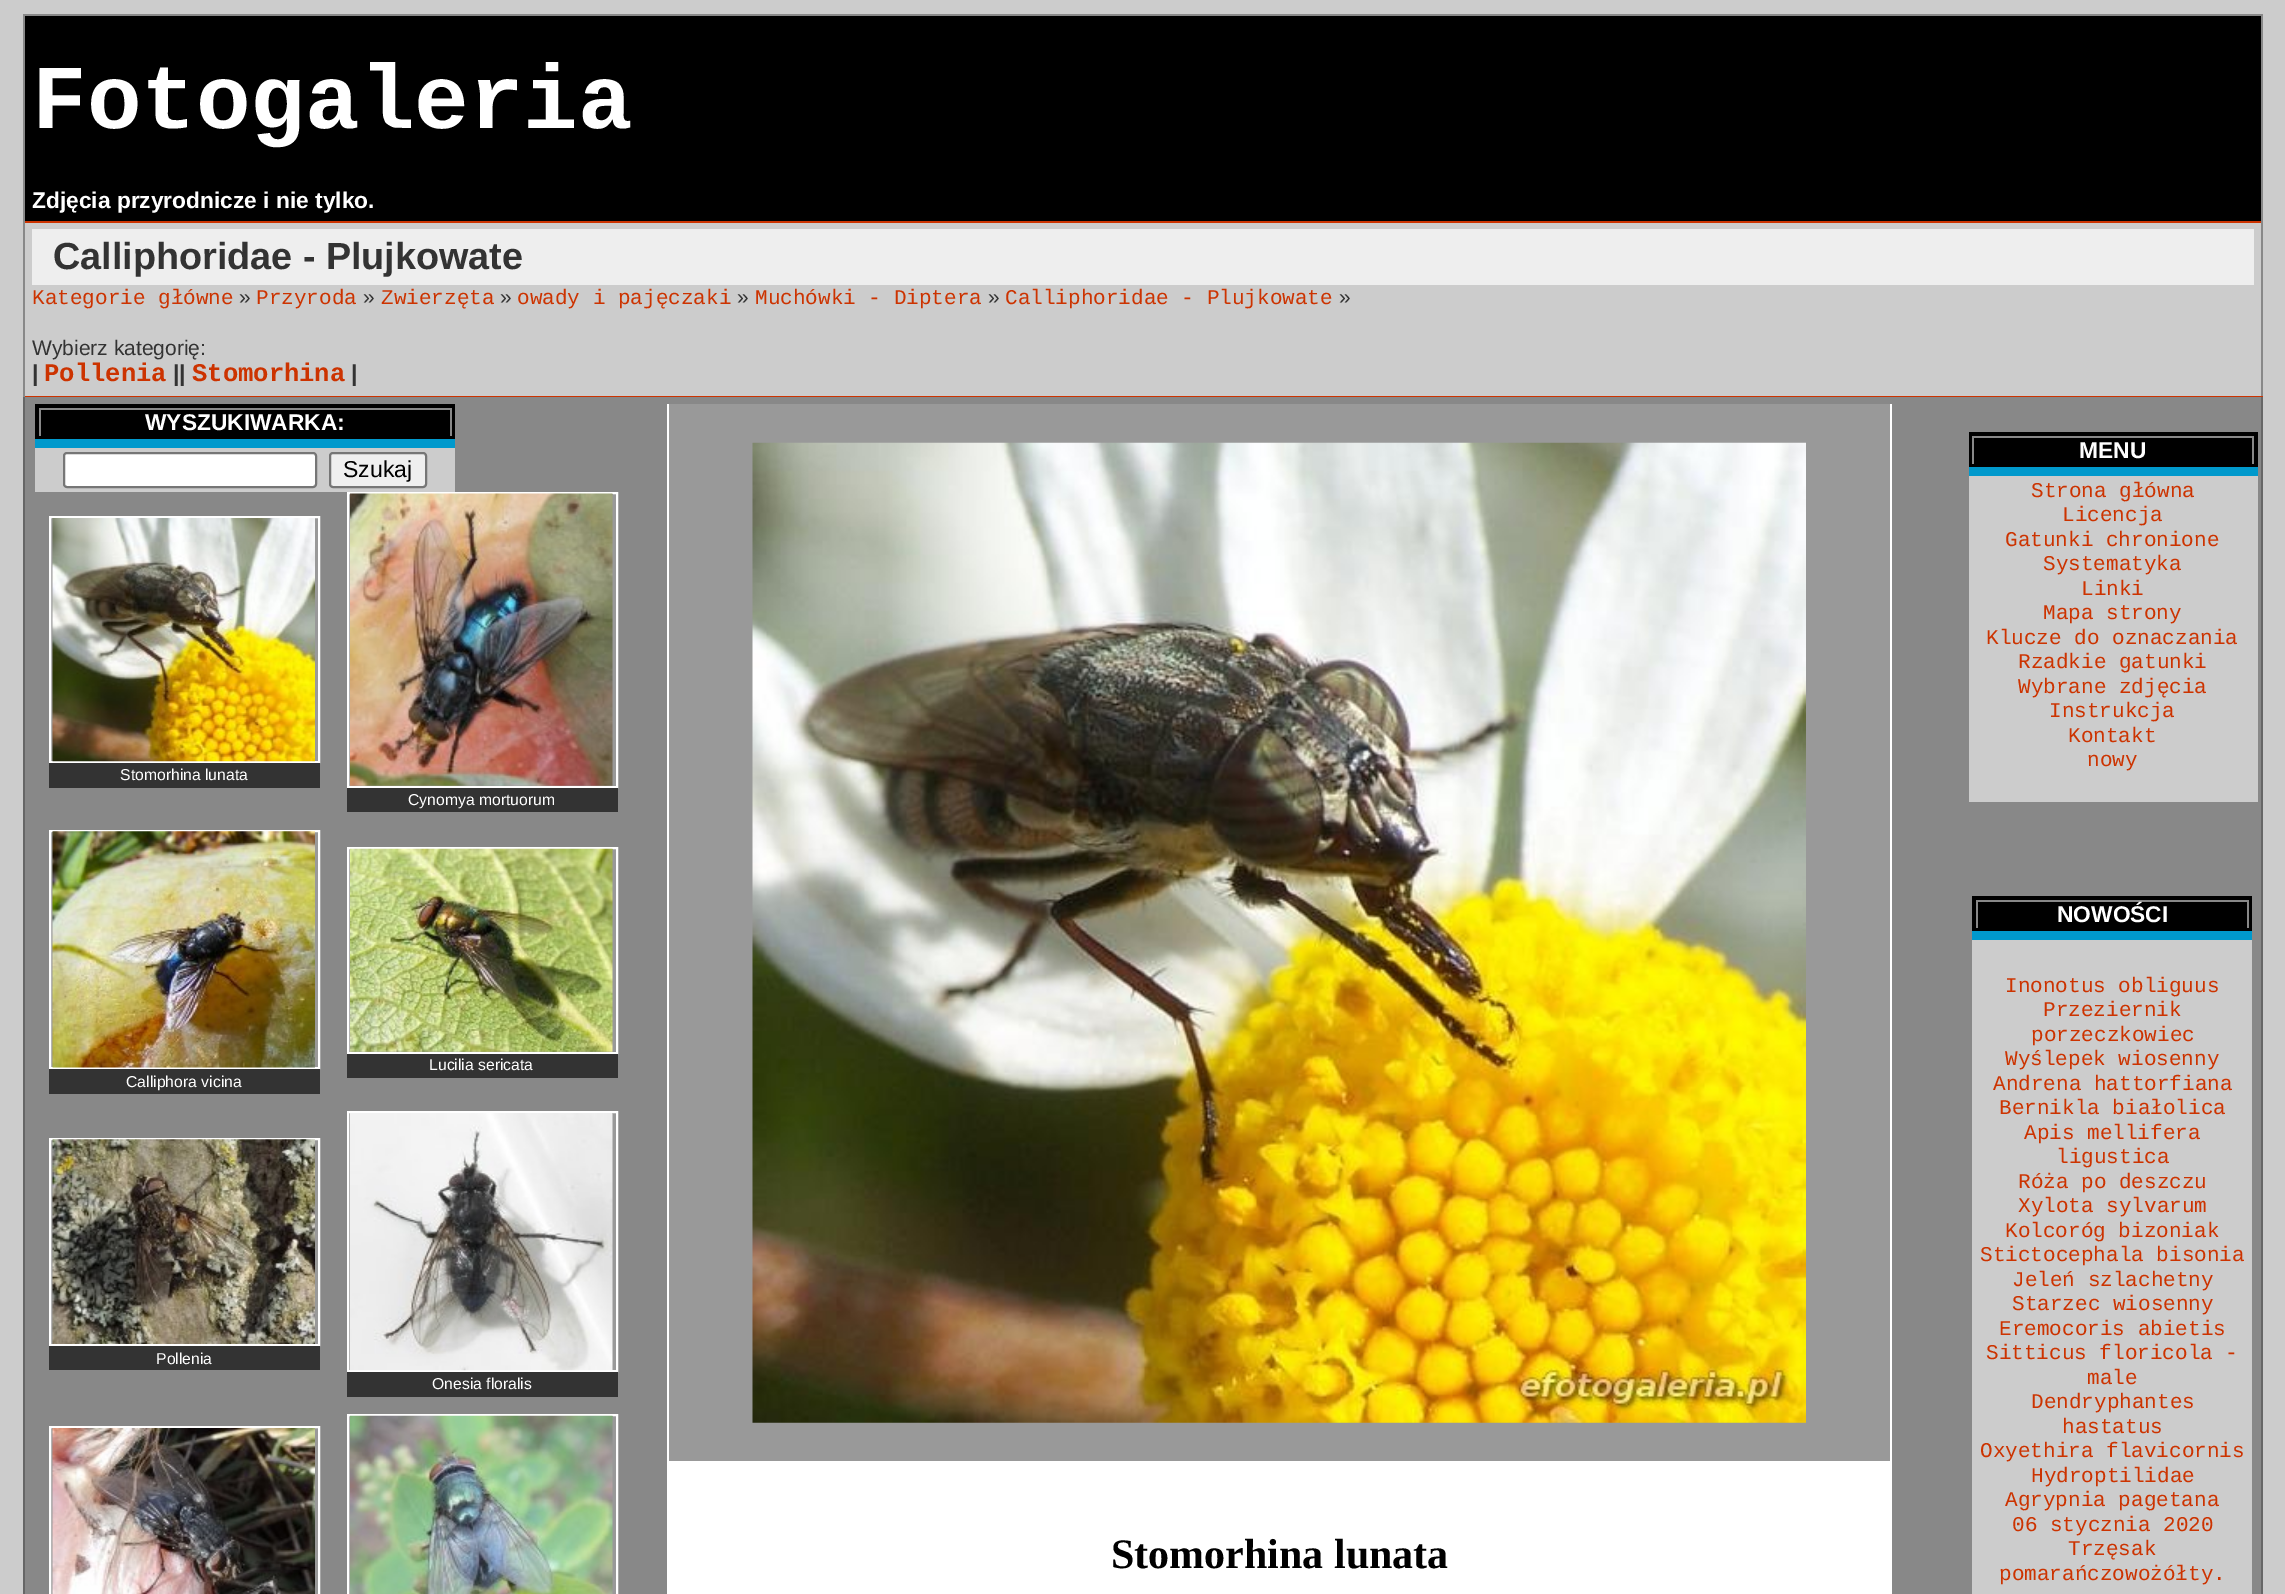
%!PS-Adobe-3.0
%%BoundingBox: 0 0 2285 1594
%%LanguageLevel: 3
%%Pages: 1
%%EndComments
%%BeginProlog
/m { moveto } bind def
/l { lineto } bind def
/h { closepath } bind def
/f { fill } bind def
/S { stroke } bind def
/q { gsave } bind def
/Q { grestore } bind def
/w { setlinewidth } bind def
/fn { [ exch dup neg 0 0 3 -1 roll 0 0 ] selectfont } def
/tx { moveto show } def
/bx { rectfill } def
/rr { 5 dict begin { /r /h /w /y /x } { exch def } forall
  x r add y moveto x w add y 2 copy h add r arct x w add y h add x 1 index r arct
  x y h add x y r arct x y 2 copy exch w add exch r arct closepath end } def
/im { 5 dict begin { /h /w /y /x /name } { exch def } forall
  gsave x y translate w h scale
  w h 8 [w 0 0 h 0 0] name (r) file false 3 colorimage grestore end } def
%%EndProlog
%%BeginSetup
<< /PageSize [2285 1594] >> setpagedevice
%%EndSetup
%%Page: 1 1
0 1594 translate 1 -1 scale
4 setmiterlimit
0.8 setgray
0 0 2285 1594 bx
0 setgray
25 16 2236 205 bx
0.533 setgray
23 14 2240 2 bx
2261 14 2 207 bx
23 14 2 207 bx
/LiberationMono-Bold 91 fn
1 setgray
(Fotogaleria) 32 128 tx
/LiberationSans-Bold 22.75 fn
(Zdjęcia przyrodnicze i nie tylko.) 32 208 tx
0.8 0.2 0 setrgbcolor
23 221 2240 2 bx
0.533 setgray
2261 221 2 176 bx
0.8 0.2 0 setrgbcolor
23 396 2240 1 bx
0.533 setgray
23 221 2 176 bx
0.933 setgray
32 229 2222 56 bx
/LiberationSans-Bold 37.75 fn
0.2 setgray
(Calliphoridae - Plujkowate) 53 269 tx
/LiberationMono-Regular 21 fn
0.8 0.2 0 setrgbcolor
(Kategorie główne) 32 304 tx
/LiberationSans-Regular 21 fn
0.2 setgray
(») 239 304 tx
/LiberationMono-Regular 21 fn
0.8 0.2 0 setrgbcolor
(Przyroda) 256 304 tx
/LiberationSans-Regular 21 fn
0.2 setgray
(») 363 304 tx
/LiberationMono-Regular 21 fn
0.8 0.2 0 setrgbcolor
(Zwierzęta) 381 304 tx
/LiberationSans-Regular 21 fn
0.2 setgray
(») 500 304 tx
/LiberationMono-Regular 21 fn
0.8 0.2 0 setrgbcolor
(owady i pajęczaki) 517 304 tx
/LiberationSans-Regular 21 fn
0.2 setgray
(») 737 304 tx
/LiberationMono-Regular 21 fn
0.8 0.2 0 setrgbcolor
(Muchówki - Diptera) 755 304 tx
/LiberationSans-Regular 21 fn
0.2 setgray
(») 988 304 tx
/LiberationMono-Regular 21 fn
0.8 0.2 0 setrgbcolor
(Calliphoridae - Plujkowate) 1005 304 tx
/LiberationSans-Regular 21 fn
0.2 setgray
(») 1339 304 tx
(Wybierz kategorię:) 32 355 tx
/LiberationSans-Bold 23 fn
(|) 32 381 tx
/LiberationMono-Bold 25.5 fn
0.8 0.2 0 setrgbcolor
(Pollenia) 44 381 tx
/LiberationSans-Bold 23 fn
0.2 setgray
(||) 173 381 tx
/LiberationMono-Bold 25.5 fn
0.8 0.2 0 setrgbcolor
(Stomorhina) 192 381 tx
/LiberationSans-Bold 23 fn
0.2 setgray
(|) 351 381 tx
0.533 setgray
25 397 2236 1197 bx
0.4 setgray
2261 397 2 1197 bx
23 397 2 1197 bx
0 setgray
35 404 420 35 bx
0.533 setgray
39 408 413 2 bx
450 408 2 28 bx
39 408 2 28 bx
/LiberationSans-Bold 22.75 fn
1 setgray
(WYSZUKIWARKA:) 145 430 tx
0 0.6 0.8 setrgbcolor
35 439 420 9 bx
0.8 setgray
35 448 420 44 bx
1 setgray
64 453 252 34 3 rr q f Q
0.463 setgray
2 w
S
0.937 setgray
330 453 96 34 3 rr q f Q
0.463 setgray
S
/LiberationSans-Regular 23 fn
0 setgray
(Szukaj) 343 477 tx
0.6 setgray
50 517 m 319 517 l 319 762 l 50 762 l h q f Q
1 setgray
S
(image0.raw) 52 518 263 244 im
0.2 setgray
49 763 271 25 bx
/LiberationSans-Regular 15.75 fn
1 setgray
(Stomorhina lunata) 120 780 tx
0.6 setgray
348 493 m 617 493 l 617 787 l 348 787 l h q f Q
1 setgray
S
(image1.raw) 350 493 263 293 im
0.2 setgray
347 788 271 24 bx
1 setgray
(Cynomya mortuorum) 408 805 tx
0.6 setgray
348 848 m 617 848 l 617 1053 l 348 1053 l h q f Q
1 setgray
S
(image2.raw) 350 848 263 204 im
0.2 setgray
347 1054 271 24 bx
1 setgray
(Lucilia sericata) 429 1070 tx
0.6 setgray
50 831 m 319 831 l 319 1068 l 50 1068 l h q f Q
1 setgray
S
(image3.raw) 52 831 263 237 im
0.2 setgray
49 1069 271 25 bx
1 setgray
(Calliphora vicina) 126 1087 tx
0.6 setgray
50 1139 m 319 1139 l 319 1345 l 50 1345 l h q f Q
1 setgray
S
(image4.raw) 52 1139 263 205 im
0.2 setgray
49 1346 271 24 bx
1 setgray
(Pollenia) 156 1364 tx
0.6 setgray
348 1112 m 617 1112 l 617 1371 l 348 1371 l h q f Q
1 setgray
S
(image5.raw) 350 1113 263 258 im
0.2 setgray
347 1372 271 25 bx
1 setgray
(Onesia floralis) 432 1389 tx
0.6 setgray
50 1427 m 319 1427 l 319 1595 l 50 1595 l h q f Q
1 setgray
S
(image6.raw) 52 1428 263 166 im
0.6 setgray
348 1415 m 617 1415 l 617 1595 l 348 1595 l h q f Q
1 setgray
S
(image7.raw) 350 1415 263 179 im
1890 404 2 1190 bx
667 404 2 1190 bx
0.6 setgray
669 404 1221 1057 bx
(image8.raw) 752 442 1054 981 im
1 setgray
669 1461 1221 133 bx
/LiberationSerif-Bold 42 fn
0 setgray
(Stomorhina lunata) 1111 1568 tx
1969 432 289 35 bx
0.533 setgray
1972 436 282 2 bx
2252 436 2 28 bx
1972 436 2 28 bx
/LiberationSans-Bold 22.75 fn
1 setgray
(MENU) 2079 458 tx
0 0.6 0.8 setrgbcolor
1969 467 289 9 bx
0.8 setgray
1969 476 289 326 bx
/LiberationMono-Regular 21 fn
0.8 0.2 0 setrgbcolor
(Strona główna) 2031 497 tx
(Licencja) 2062 521 tx
(Gatunki chronione) 2005 546 tx
(Systematyka) 2043 570 tx
(Linki) 2081 595 tx
(Mapa strony) 2043 619 tx
(Klucze do oznaczania) 1986 644 tx
(Rzadkie gatunki) 2018 668 tx
(Wybrane zdjęcia) 2018 693 tx
(Instrukcja) 2049 717 tx
(Kontakt) 2068 742 tx
(nowy) 2087 766 tx
0 setgray
1972 896 280 35 bx
0.533 setgray
1976 900 273 2 bx
2247 900 2 28 bx
1976 900 2 28 bx
/LiberationSans-Bold 22.75 fn
1 setgray
(NOWOŚCI) 2057 922 tx
0 0.6 0.8 setrgbcolor
1972 931 280 9 bx
0.8 setgray
1972 940 280 654 bx
/LiberationMono-Regular 21 fn
0.8 0.2 0 setrgbcolor
(Inonotus obliguus) 2005 992 tx
(Przeziernik) 2043 1016 tx
(porzeczkowiec) 2031 1041 tx
(Wyślepek wiosenny) 2005 1065 tx
(Andrena hattorfiana) 1993 1090 tx
(Bernikla białolica) 1999 1114 tx
(Apis mellifera) 2024 1139 tx
(ligustica) 2056 1163 tx
(Róża po deszczu) 2018 1188 tx
(Xylota sylvarum) 2018 1212 tx
(Kolcoróg bizoniak) 2005 1237 tx
(Stictocephala bisonia) 1980 1261 tx
(Jeleń szlachetny) 2012 1286 tx
(Starzec wiosenny) 2012 1310 tx
(Eremocoris abietis) 1999 1335 tx
(Sitticus floricola -) 1986 1359 tx
(male) 2087 1384 tx
(Dendryphantes) 2031 1408 tx
(hastatus) 2062 1433 tx
(Oxyethira flavicornis) 1980 1457 tx
(Hydroptilidae) 2031 1482 tx
(Agrypnia pagetana) 2005 1506 tx
(06 stycznia 2020) 2012 1531 tx
(Trzęsak) 2068 1555 tx
(pomarańczowożółty.) 1999 1580 tx
showpage
%%EOF
